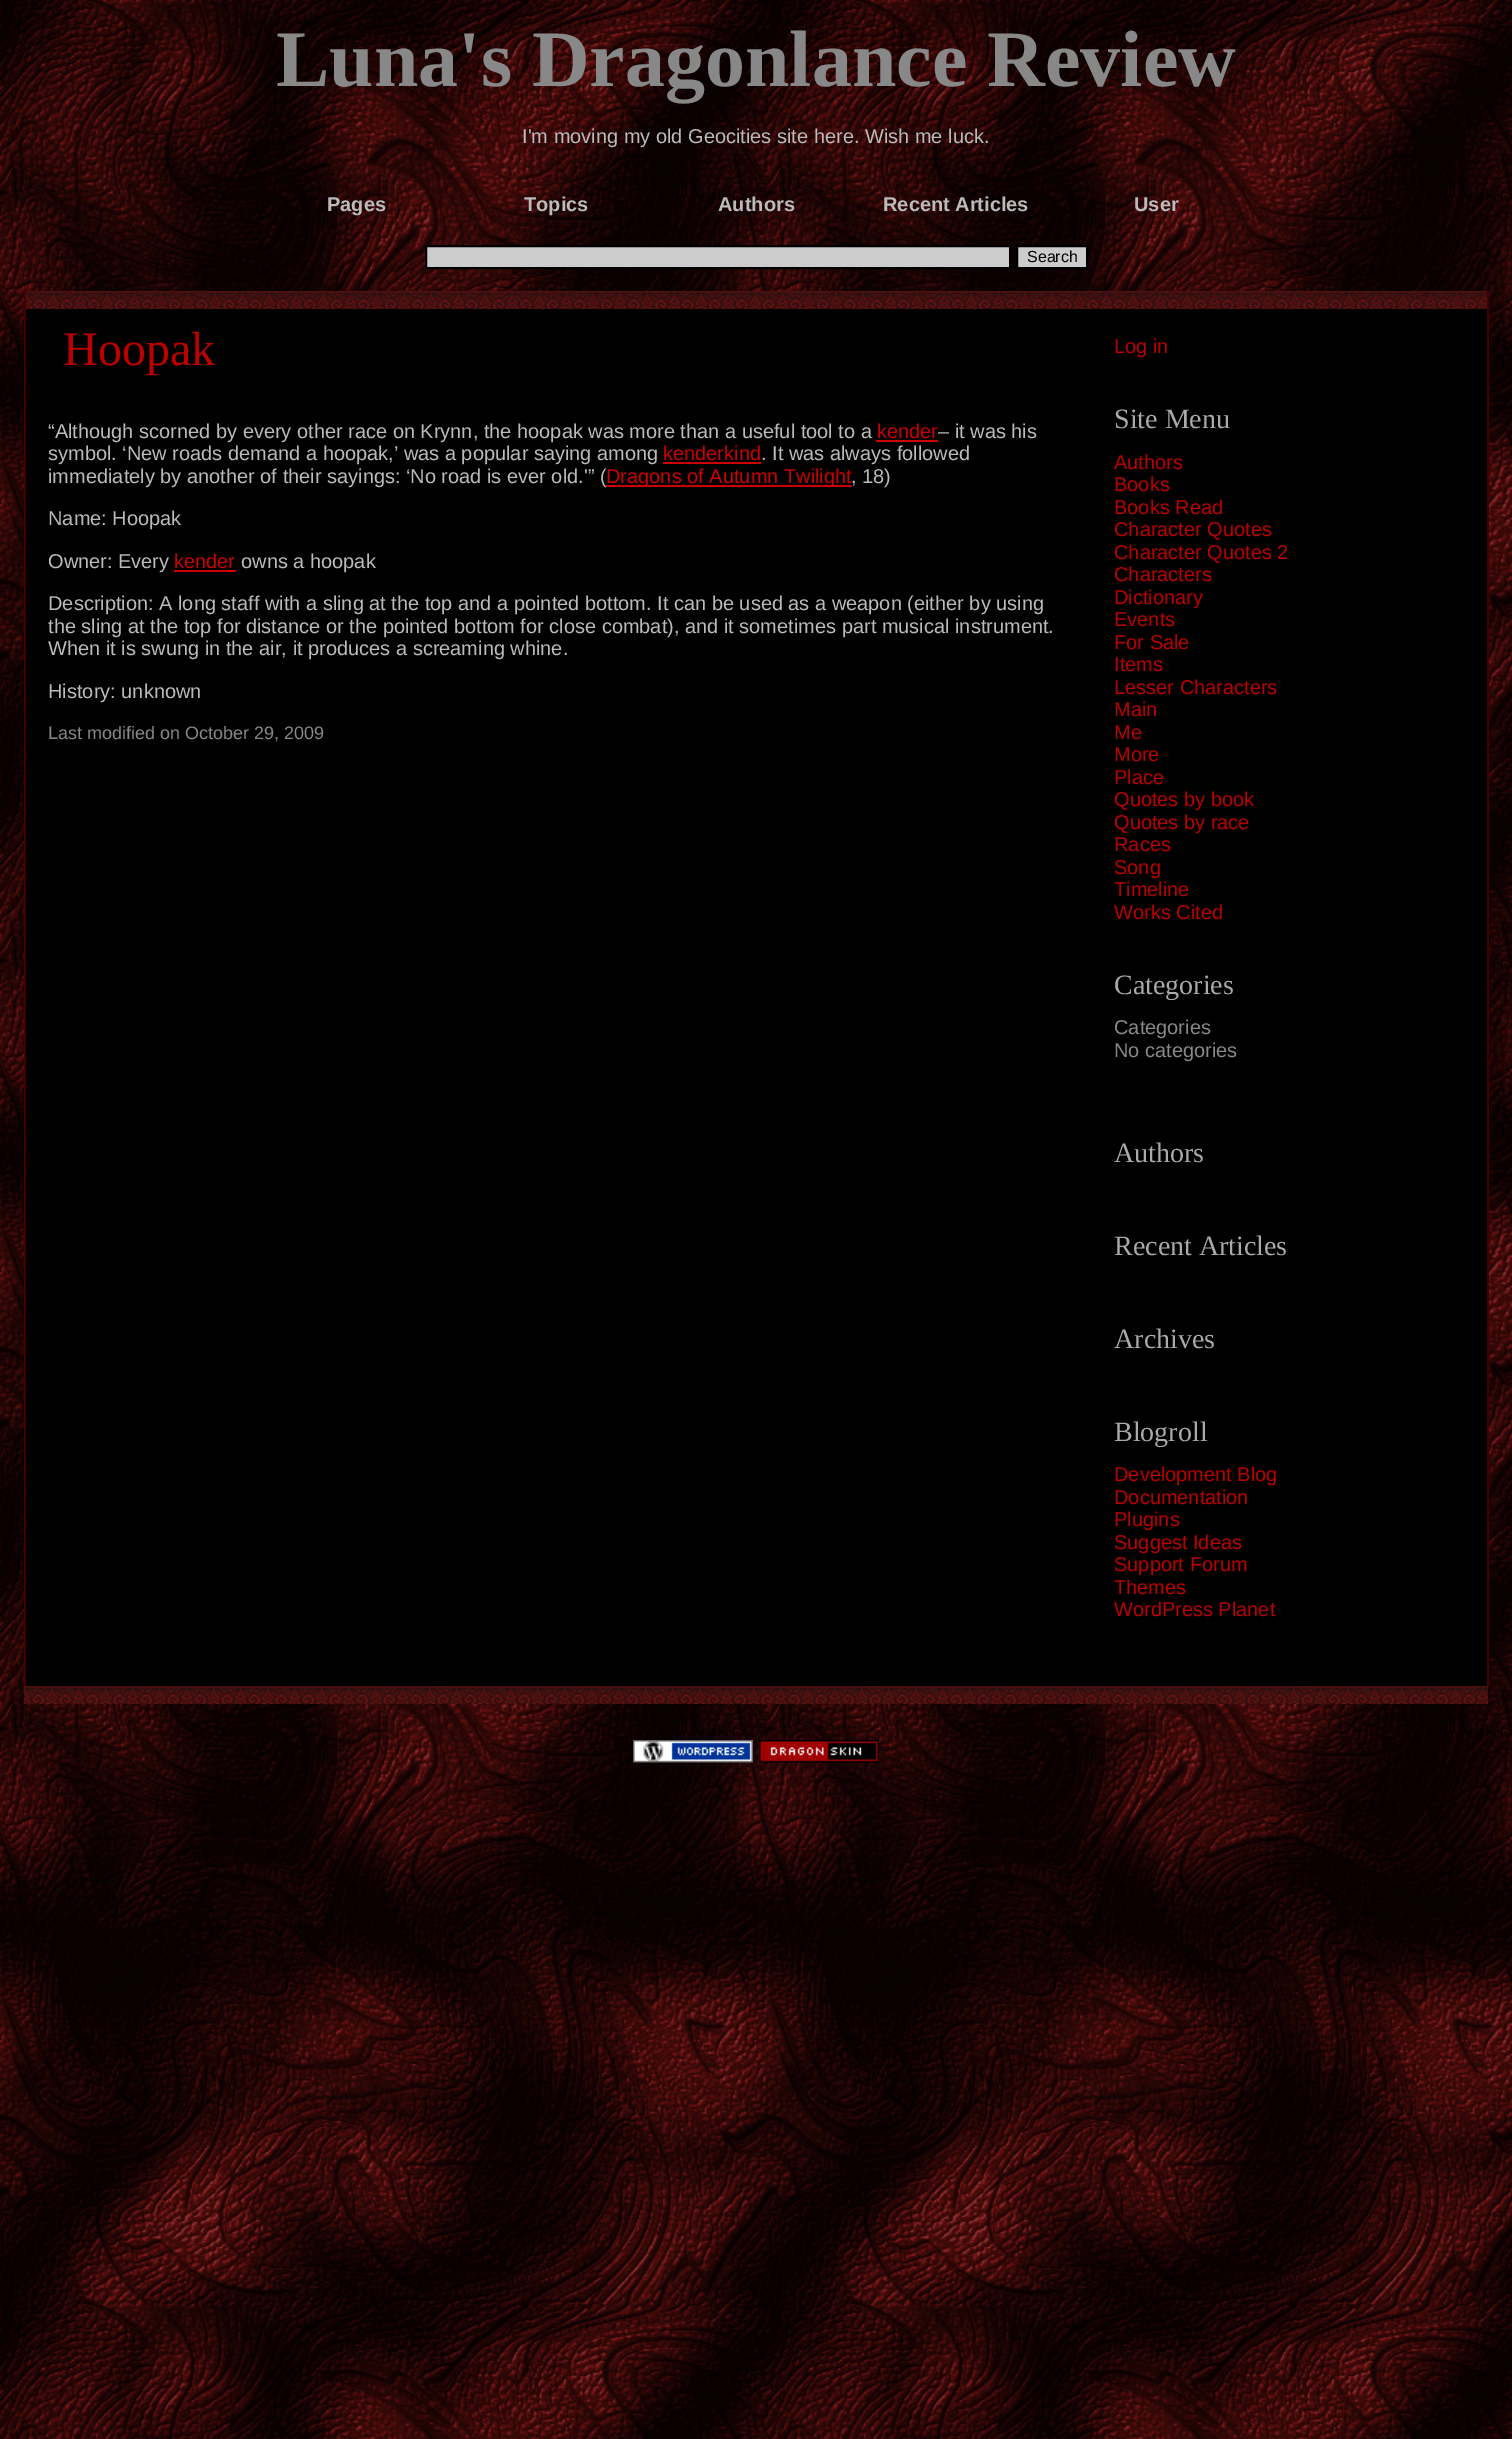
%!PS-Adobe-3.0
%%BoundingBox: 0 0 1512 2439
%%LanguageLevel: 3
%%Pages: 1
%%EndComments
%%BeginProlog
/m { moveto } bind def
/l { lineto } bind def
/h { closepath } bind def
/f { fill } bind def
/S { stroke } bind def
/q { gsave } bind def
/Q { grestore } bind def
/w { setlinewidth } bind def
/fn { [ exch dup neg 0 0 3 -1 roll 0 0 ] selectfont } def
/tx { moveto show } def
/bx { rectfill } def
/im { 5 dict begin { /h /w /y /x /name } { exch def } forall
  gsave x y translate w h scale
  w h 8 [w 0 0 h 0 0] name (r) file false 3 colorimage grestore end } def
%%EndProlog
%%BeginSetup
<< /PageSize [1512 2439] >> setpagedevice
%%EndSetup
%%Page: 1 1
0 2439 translate 1 -1 scale
4 setmiterlimit
1 setgray
0 0 1512 2439 bx
(image0.raw) 0 0 1512 2439 im
/LiberationSerif-Bold 80 fn
0.533 setgray
(Luna's Dragonlance Review) 276 86 tx
/LiberationSans-Regular 20 fn
0.733 setgray
(I'm moving my old Geocities site here. Wish me luck.) 522 143 tx
/LiberationSans-Bold 20 fn
(Pages) 327 211 tx
(Topics) 524 211 tx
(Authors) 718 211 tx
(Recent Articles) 883 211 tx
(User) 1134 211 tx
0.8 setgray
426 246 m 1010 246 l 1010 268 l 426 268 l h q f Q
0 setgray
2 w
S
0.8 setgray
1017 246 m 1087 246 l 1087 268 l 1017 268 l h q f Q
0 setgray
S
/LiberationSans-Regular 16 fn
(Search) 1027 262 tx
26 309 1461 1377 bx
(image1.raw) 26 291 1461 18 im
0.267 0 0 setrgbcolor
1487 291 2 1395 bx
24 291 2 1395 bx
/LiberationSerif-Regular 48 fn
0.733 0 0 setrgbcolor
(Hoopak) 63 365 tx
/LiberationSans-Regular 20 fn
0.733 setgray
(“Although scorned by every other race on Krynn, the hoopak was more than a useful tool to a) 48 438 tx
0.8 0 0 setrgbcolor
(kender) 877 438 tx
876 440 62 2 bx
0.733 setgray
(– it was his) 938 438 tx
(symbol. ‘New roads demand a hoopak,’ was a popular saying among) 48 460 tx
0.8 0 0 setrgbcolor
(kenderkind) 663 460 tx
663 462 98 2 bx
0.733 setgray
(. It was always followed) 761 460 tx
(immediately by another of their sayings: ‘No road is ever old.'” \() 48 483 tx
0.8 0 0 setrgbcolor
606 485 246 2 bx
(Dragons of Autumn Twilight) 606 483 tx
0.733 setgray
(, 18\)) 851 483 tx
(Name: Hoopak) 48 525 tx
(Owner: Every) 48 568 tx
0.8 0 0 setrgbcolor
(kender) 174 568 tx
174 570 62 2 bx
0.733 setgray
(owns a hoopak) 241 568 tx
(Description: A long staff with a sling at the top and a pointed bottom. It can be used as a weapon \(either by using) 48 610 tx
(the sling at the top for distance or the pointed bottom for close combat\), and it sometimes part musical instrument.) 48 633 tx
(When it is swung in the air, it produces a screaming whine.) 48 655 tx
(History: unknown) 48 698 tx
/LiberationSans-Regular 18 fn
0.533 setgray
(Last modified on October 29, 2009) 48 739 tx
/LiberationSans-Regular 20 fn
0.733 0 0 setrgbcolor
(Log in) 1114 353 tx
/LiberationSerif-Regular 28 fn
0.667 setgray
(Site Menu) 1114 428 tx
/LiberationSans-Regular 20 fn
0.733 0 0 setrgbcolor
(Authors) 1114 469 tx
(Books) 1114 491 tx
(Books Read) 1114 514 tx
(Character Quotes) 1114 536 tx
(Character Quotes 2) 1114 559 tx
(Characters) 1114 581 tx
(Dictionary) 1114 604 tx
(Events) 1114 626 tx
(For Sale) 1114 649 tx
(Items) 1114 671 tx
(Lesser Characters) 1114 694 tx
(Main) 1114 716 tx
(Me) 1114 739 tx
(More) 1114 761 tx
(Place) 1114 784 tx
(Quotes by book) 1114 806 tx
(Quotes by race) 1114 829 tx
(Races) 1114 851 tx
(Song) 1114 874 tx
(Timeline) 1114 896 tx
(Works Cited) 1114 919 tx
/LiberationSerif-Regular 28 fn
0.667 setgray
(Categories) 1114 994 tx
/LiberationSans-Regular 20 fn
0.533 setgray
(Categories) 1114 1034 tx
(No categories) 1114 1057 tx
/LiberationSerif-Regular 28 fn
0.667 setgray
(Authors) 1114 1162 tx
(Recent Articles) 1114 1255 tx
(Archives) 1114 1348 tx
(Blogroll) 1114 1441 tx
/LiberationSans-Regular 20 fn
0.733 0 0 setrgbcolor
(Development Blog) 1114 1481 tx
(Documentation) 1114 1504 tx
(Plugins) 1114 1526 tx
(Suggest Ideas) 1114 1549 tx
(Support Forum) 1114 1571 tx
(Themes) 1114 1594 tx
(WordPress Planet) 1114 1616 tx
(image2.raw) 24 1686 1464 18 im
(image3.raw) 633 1740 120 23 im
(image4.raw) 759 1740 120 23 im
showpage
%%EOF
